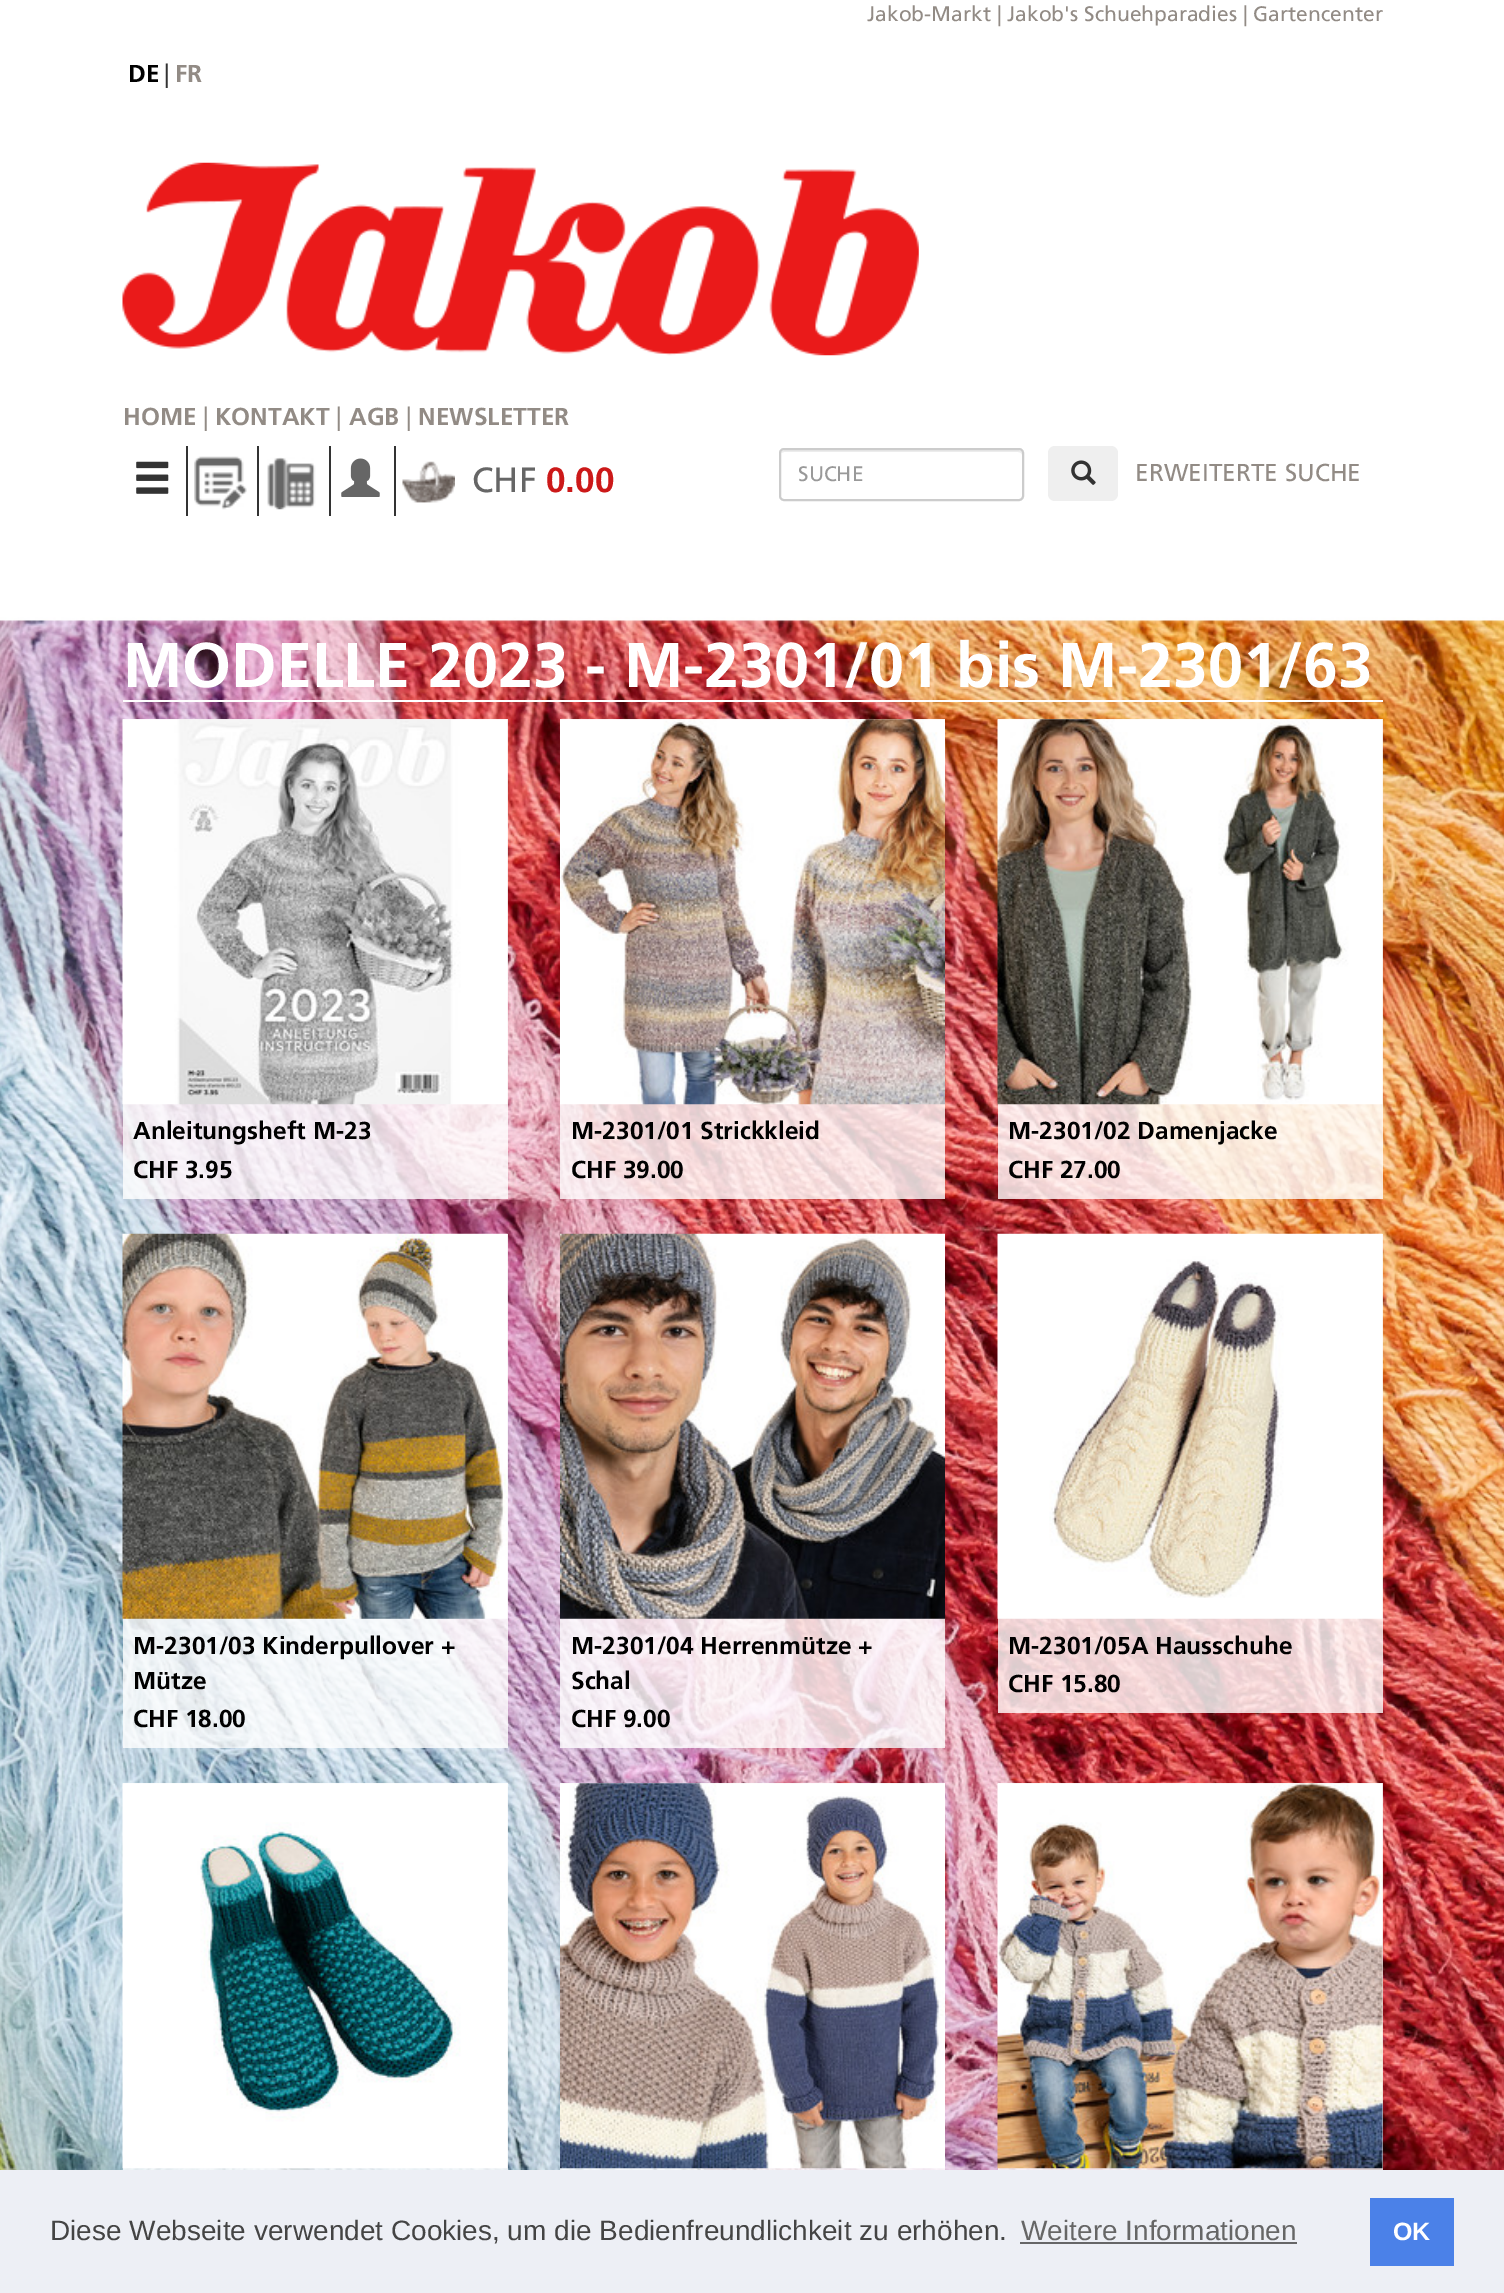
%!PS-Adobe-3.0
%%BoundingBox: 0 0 1504 2293
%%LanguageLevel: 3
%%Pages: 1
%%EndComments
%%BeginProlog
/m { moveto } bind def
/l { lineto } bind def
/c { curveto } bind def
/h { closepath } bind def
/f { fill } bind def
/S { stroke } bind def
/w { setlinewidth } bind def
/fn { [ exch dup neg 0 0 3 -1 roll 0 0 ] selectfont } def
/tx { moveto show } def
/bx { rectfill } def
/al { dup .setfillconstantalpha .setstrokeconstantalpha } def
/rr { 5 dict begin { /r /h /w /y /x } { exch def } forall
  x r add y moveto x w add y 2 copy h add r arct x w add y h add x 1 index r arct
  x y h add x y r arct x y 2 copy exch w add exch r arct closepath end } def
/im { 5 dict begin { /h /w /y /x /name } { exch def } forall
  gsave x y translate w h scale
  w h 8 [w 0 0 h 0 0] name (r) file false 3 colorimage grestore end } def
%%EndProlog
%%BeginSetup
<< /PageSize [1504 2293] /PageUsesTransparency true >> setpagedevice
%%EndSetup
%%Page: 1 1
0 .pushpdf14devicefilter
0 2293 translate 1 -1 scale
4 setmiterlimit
1 setgray
0 0 1504 2293 bx
/Frutiger-Regular 21 fn
0.573 0.545 0.522 setrgbcolor
(Jakob-Markt | Jakob's Schuehparadies | Gartencenter) 867 21 tx
/Frutiger-Bold 24.5 fn
0 setgray
(DE) 128 82 tx
/Frutiger-Regular 24.5 fn
0.2 setgray
(|) 164 82 tx
/Frutiger-Bold 24.5 fn
0.573 0.545 0.522 setrgbcolor
(FR) 175 82 tx
(image0.raw) 122 162 797 194 im
(HOME) 123 425 tx
/Frutiger-Regular 24.5 fn
(|) 203 425 tx
/Frutiger-Bold 24.5 fn
(KONTAKT) 215 425 tx
/Frutiger-Regular 24.5 fn
(|) 336 425 tx
/Frutiger-Bold 24.5 fn
(AGB) 349 425 tx
/Frutiger-Regular 24.5 fn
(|) 406 425 tx
/Frutiger-Bold 24.5 fn
(NEWSLETTER) 418 425 tx
(image1.raw) 136 461 33 33 im
0.2 setgray
186 446 2 70 bx
(image2.raw) 194 456 53 54 im
257 446 2 70 bx
(image3.raw) 267 457 49 53 im
329 446 2 70 bx
(image4.raw) 341 458 39 39 im
394 446 2 70 bx
(image5.raw) 402 461 53 42 im
/Frutiger-Regular 35 fn
0.4 setgray
(CHF) 472 492 tx
/Frutiger-Bold 35 fn
0.8 0.098 0.098 setrgbcolor
(0.00) 546 492 tx
0.925 setgray
784 452 m 1018 452 l 1020 452 1022 453 1022 455 c 1022 454 l 1022 452 1020 450 1018 450 c 785 450 l 783 450 782 451 781 453 c h f
0.8 setgray
2 w
780 449 243 51 4 rr S
/Frutiger-Regular 21 fn
0.6 setgray
(SUCHE) 798 481 tx
0.937 setgray
1048 446 70 55 7 rr f
(image6.raw) 1071 460 25 25 im
/Frutiger-Regular 24.5 fn
0.573 0.545 0.522 setrgbcolor
(ERWEITERTE SUCHE) 1135 481 tx
(image7.raw) 0 527 1504 1643 im
1 setgray
123 700 1260 2 bx
/Frutiger-Bold 63 fn
(MODELLE 2023 - M-2301/01 bis M-2301/63) 123 687 tx
0.8 al
123 719 385 480 bx
1 al
(image8.raw) 122 719 386 386 im
/Frutiger-Bold 24.5 fn
0 setgray
(Anleitungsheft M-23) 133 1139 tx
(CHF 3.95) 133 1178 tx
0.8 al
1 setgray
560 719 385 480 bx
1 al
(image9.raw) 560 719 385 386 im
0 setgray
(M-2301/01 Strickkleid) 571 1139 tx
(CHF 39.00) 571 1178 tx
0.8 al
1 setgray
998 719 385 480 bx
1 al
(image10.raw) 997 719 386 386 im
0 setgray
(M-2301/02 Damenjacke) 1008 1139 tx
(CHF 27.00) 1008 1178 tx
0.8 al
1 setgray
123 1234 385 514 bx
1 al
(image11.raw) 122 1233 386 386 im
0 setgray
(M-2301/03 Kinderpullover +) 133 1654 tx
(Mütze) 133 1689 tx
(CHF 18.00) 133 1727 tx
0.8 al
1 setgray
560 1618 385 130 bx
1 al
(image12.raw) 560 1233 385 386 im
0 setgray
(M-2301/04 Herrenmütze +) 571 1654 tx
(Schal) 571 1689 tx
(CHF 9.00) 571 1727 tx
0.8 al
1 setgray
998 1234 385 479 bx
1 al
(image13.raw) 997 1233 386 386 im
0 setgray
(M-2301/05A Hausschuhe) 1008 1654 tx
(CHF 15.80) 1008 1692 tx
0.8 al
1 setgray
123 1783 385 387 bx
1 al
(image14.raw) 122 1783 386 386 im
0.8 al
560 1783 385 387 bx
1 al
(image15.raw) 560 1783 385 386 im
0.8 al
998 1783 385 387 bx
1 al
(image16.raw) 997 1783 386 386 im
0.929 0.937 0.961 setrgbcolor
0 2170 1504 123 bx
/LiberationSans-Regular 28 fn
0.267 setgray
(Diese Webseite verwendet Cookies, um die Bedienfreundlichkeit zu erhöhen.) 50 2240 tx
0.4 setgray
(Weitere Informationen) 1021 2240 tx
0.4 0.4 0.404 setrgbcolor
1020 2242 277 2 bx
0.294 0.506 0.91 setrgbcolor
1370 2198 84 68 bx
/LiberationSans-Bold 25 fn
1 setgray
(OK) 1393 2240 tx
.poppdf14devicefilter showpage
%%EOF
